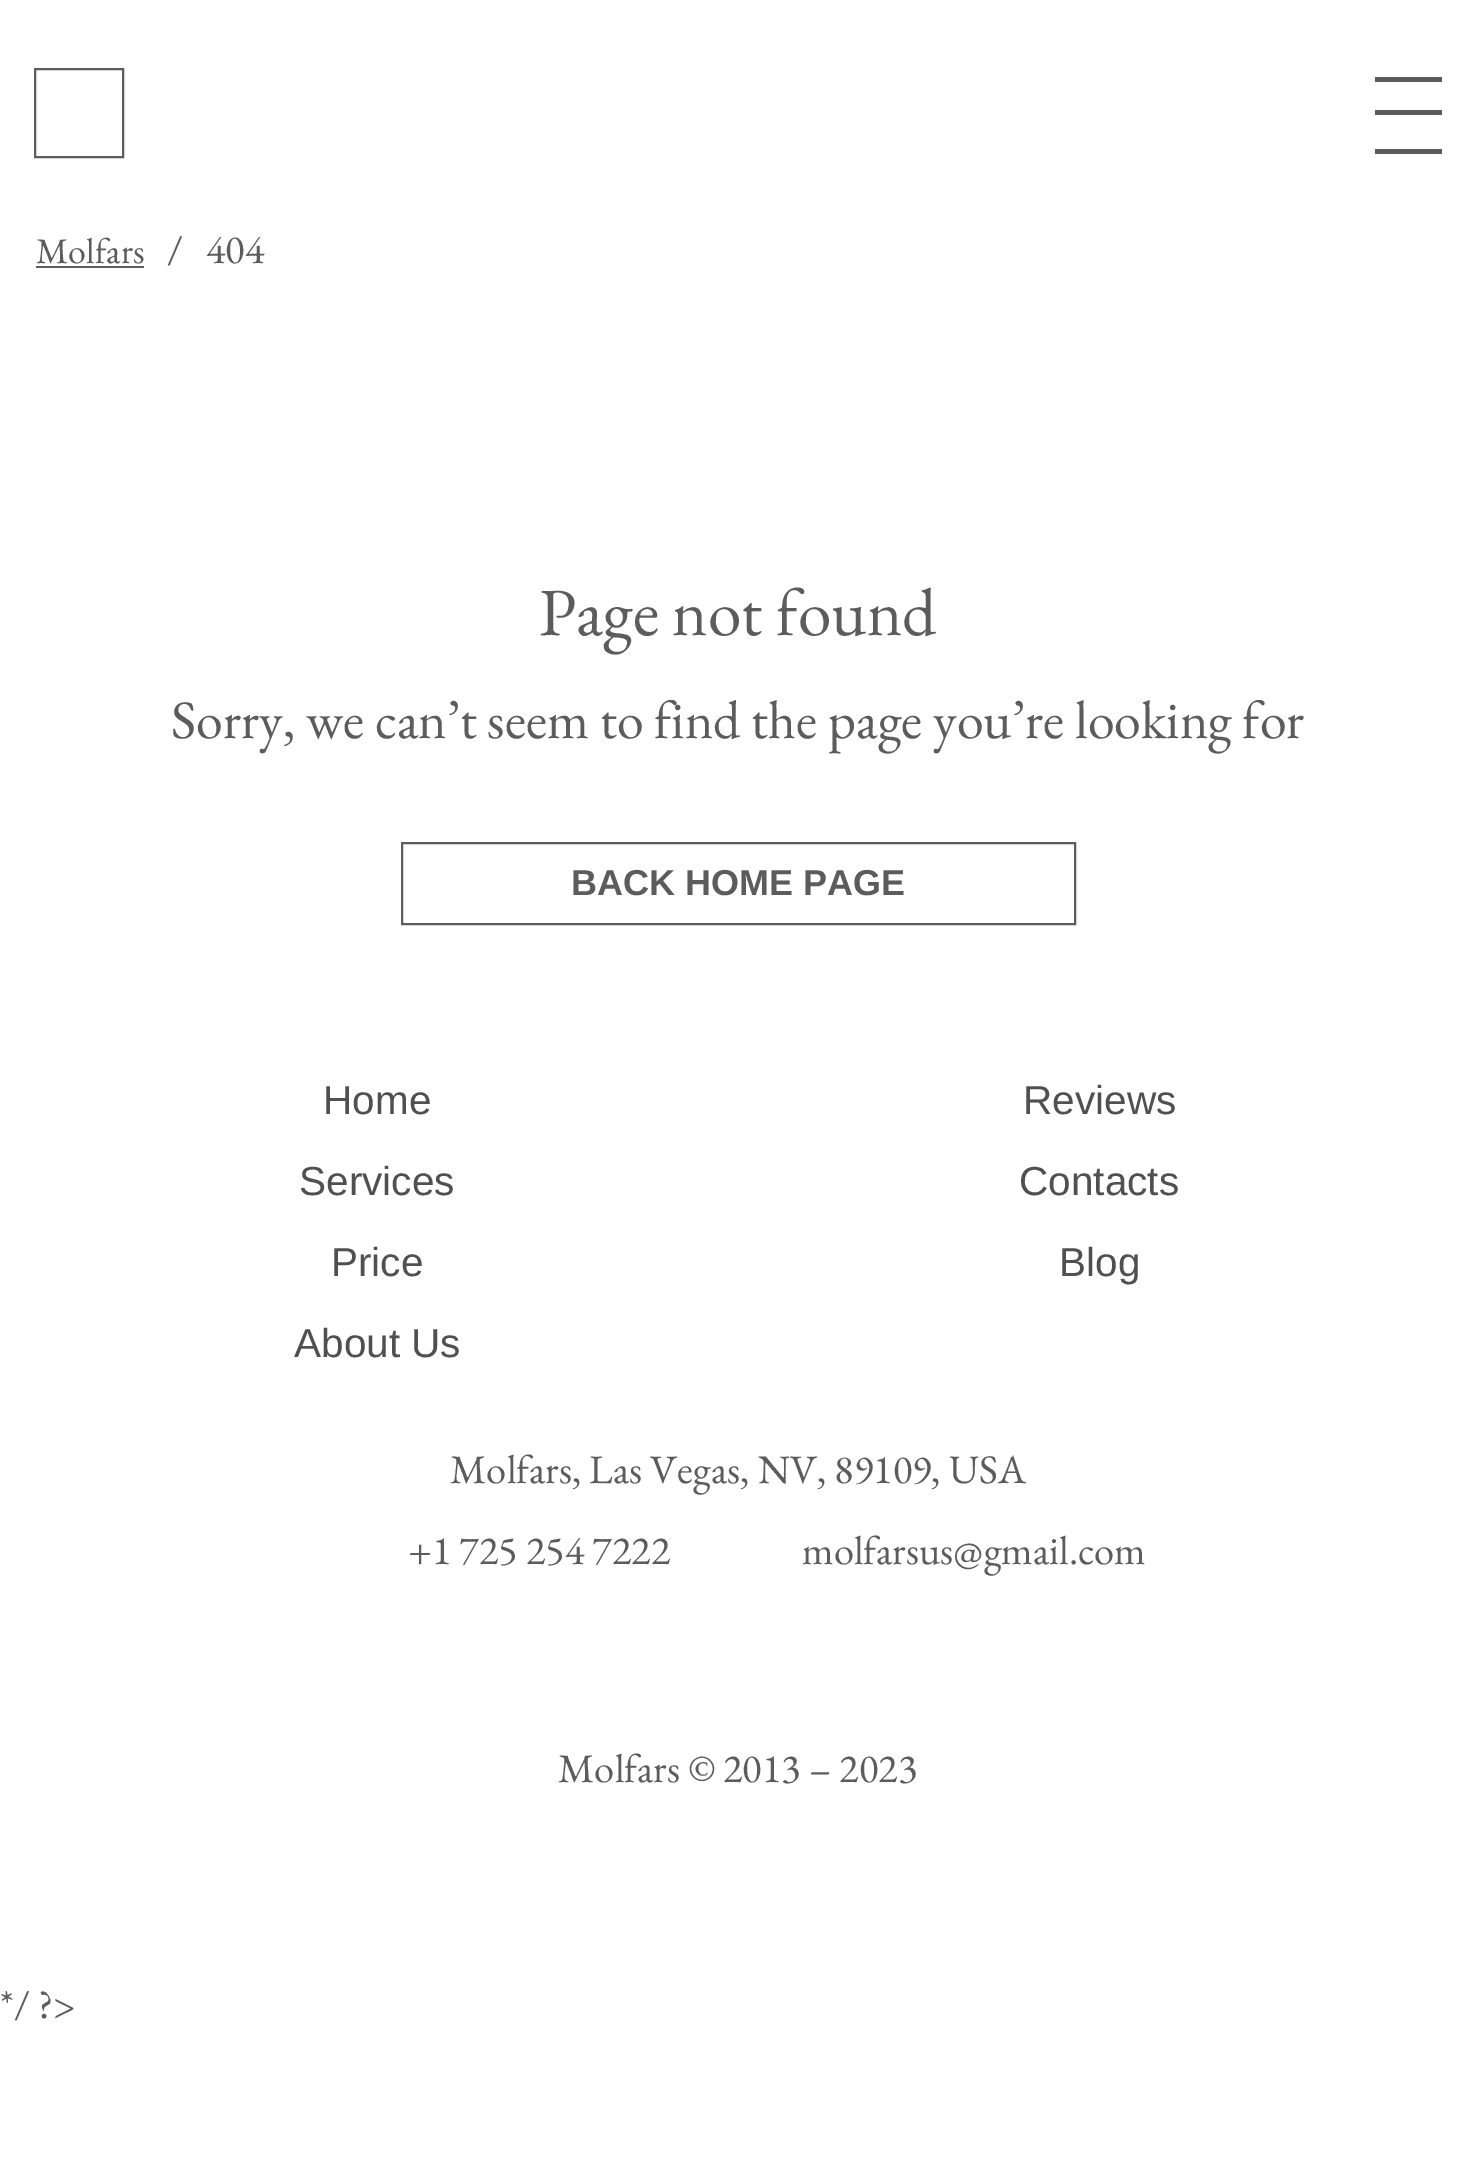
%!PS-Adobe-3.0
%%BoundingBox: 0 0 1476 2162
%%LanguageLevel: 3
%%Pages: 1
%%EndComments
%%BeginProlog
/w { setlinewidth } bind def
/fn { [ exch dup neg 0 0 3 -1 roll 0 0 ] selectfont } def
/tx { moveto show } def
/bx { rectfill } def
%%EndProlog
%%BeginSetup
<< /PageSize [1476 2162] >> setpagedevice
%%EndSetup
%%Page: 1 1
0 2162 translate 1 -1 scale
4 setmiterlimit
1 setgray
0 0 1476 2162 bx
0.361 setgray
2 w
35 69 88 88 rectstroke
1375 77 67 5 bx
1375 110 67 5 bx
1375 149 67 5 bx
/EBGaramond-Regular 36 fn
(Molfars) 36 263 tx
36 266 108 2 bx
/EBGaramond-Regular 40.5 fn
(/) 167 263 tx
(404) 206 263 tx
/EBGaramond-Regular 67.5 fn
(Page not found) 539 635 tx
/EBGaramond-Regular 54 fn
(Sorry, we can’t seem to find the page you’re looking for) 171 738 tx
402 843 673 81 rectstroke
/LiberationSans-Bold 36 fn
(BACK HOME PAGE) 571 895 tx
/LiberationSans-Regular 40.5 fn
0.314 setgray
(Home) 323 1114 tx
(Reviews) 1023 1114 tx
(Services) 299 1195 tx
(Contacts) 1019 1195 tx
(Price) 331 1276 tx
(Blog) 1059 1276 tx
(About Us) 294 1357 tx
/EBGaramond-Regular 40.5 fn
0.361 setgray
(Molfars, Las Vegas, NV, 89109, USA) 450 1483 tx
(+1 725 254 7222) 408 1564 tx
(molfarsus@gmail.com) 802 1564 tx
(Molfars © 2013 – 2023) 558 1782 tx
(*/ ?>) 0 2018 tx
showpage
%%EOF
